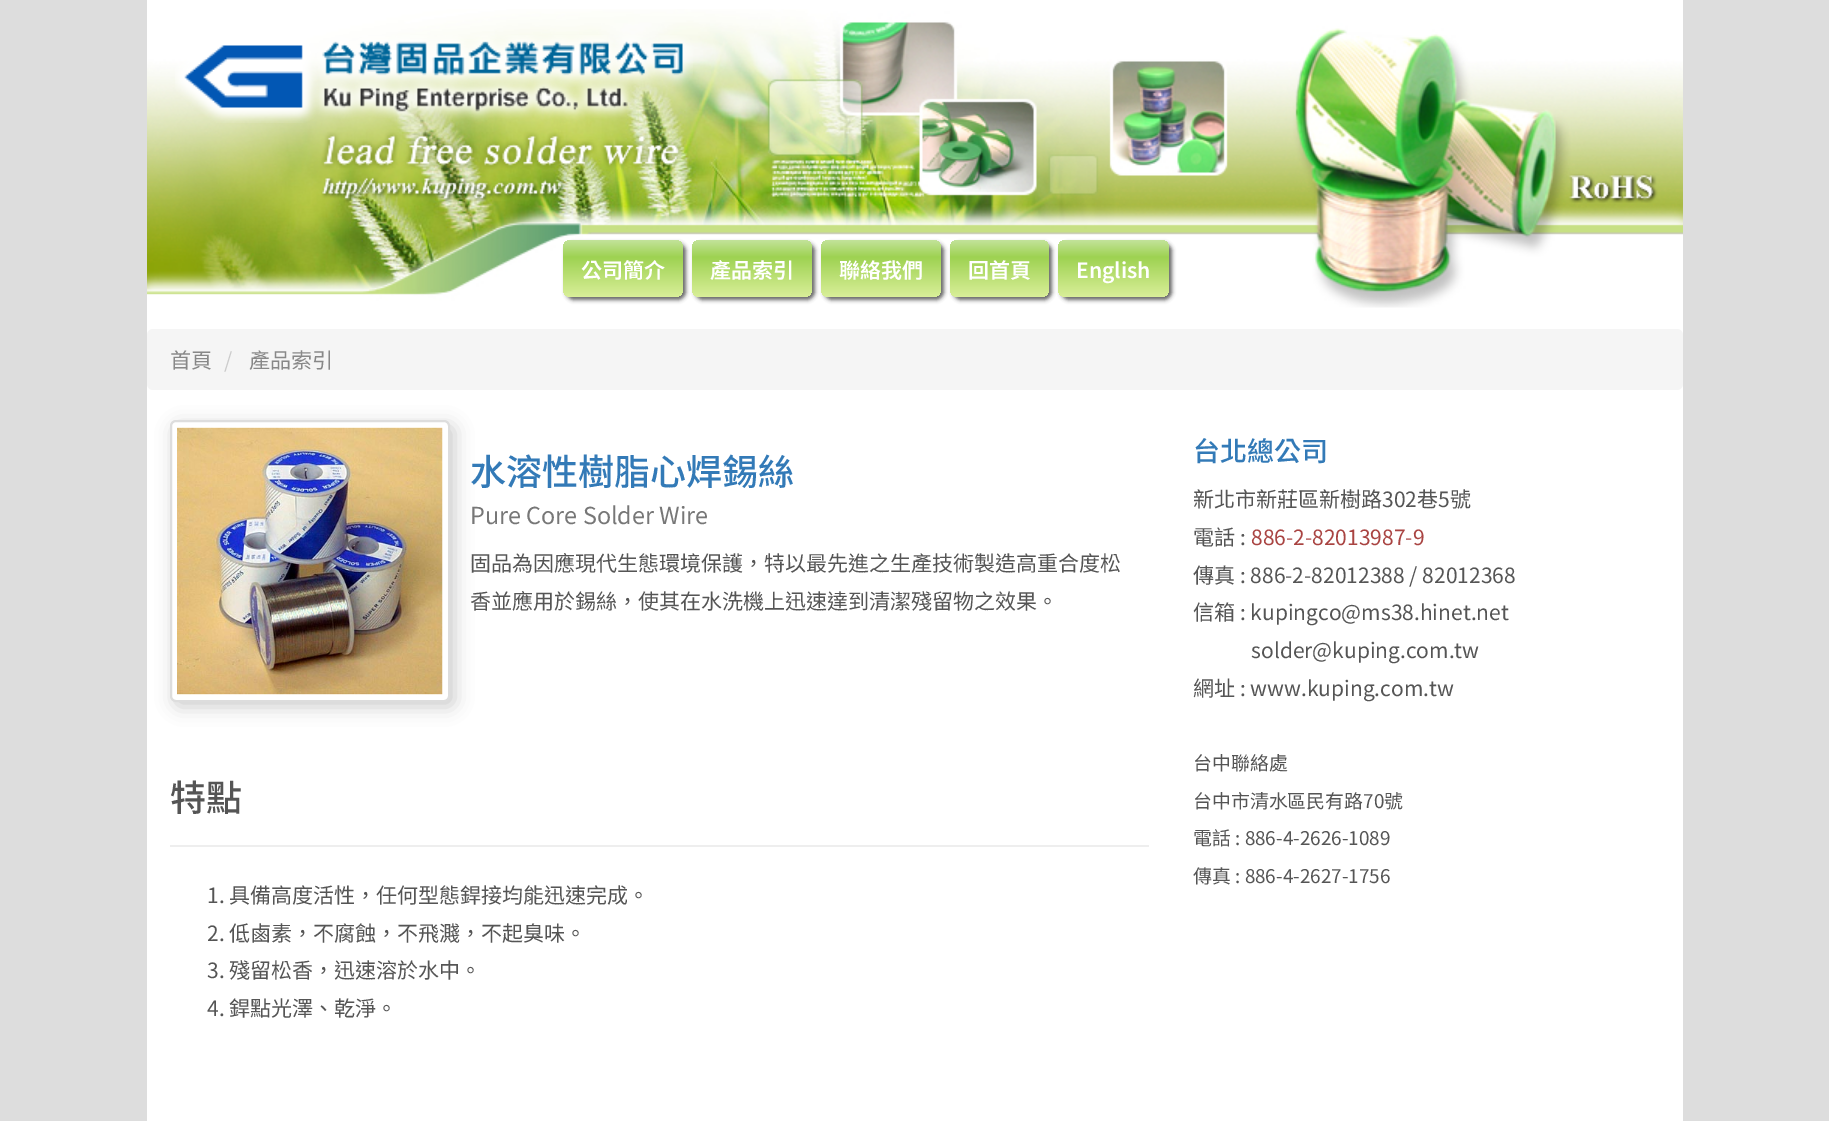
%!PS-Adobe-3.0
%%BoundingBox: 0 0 1829 1121
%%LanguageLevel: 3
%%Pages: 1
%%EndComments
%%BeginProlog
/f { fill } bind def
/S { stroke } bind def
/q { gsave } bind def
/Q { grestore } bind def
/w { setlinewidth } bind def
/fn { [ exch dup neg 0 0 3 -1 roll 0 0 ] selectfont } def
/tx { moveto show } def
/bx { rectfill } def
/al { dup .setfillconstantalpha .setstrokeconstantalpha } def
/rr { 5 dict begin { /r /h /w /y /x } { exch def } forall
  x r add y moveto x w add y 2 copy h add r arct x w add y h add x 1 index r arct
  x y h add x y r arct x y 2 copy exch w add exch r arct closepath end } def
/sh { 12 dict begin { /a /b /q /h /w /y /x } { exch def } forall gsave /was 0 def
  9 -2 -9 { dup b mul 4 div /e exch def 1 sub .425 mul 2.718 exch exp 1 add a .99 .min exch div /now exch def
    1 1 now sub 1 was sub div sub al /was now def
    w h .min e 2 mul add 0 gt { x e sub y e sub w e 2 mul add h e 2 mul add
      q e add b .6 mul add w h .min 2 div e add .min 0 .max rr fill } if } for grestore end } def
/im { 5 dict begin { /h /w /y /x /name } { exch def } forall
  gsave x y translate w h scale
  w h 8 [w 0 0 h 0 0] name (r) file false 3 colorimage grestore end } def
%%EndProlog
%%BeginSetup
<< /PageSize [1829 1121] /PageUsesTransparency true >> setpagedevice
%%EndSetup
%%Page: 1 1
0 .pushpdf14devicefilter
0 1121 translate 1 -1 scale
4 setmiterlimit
0.867 setgray
0 0 1829 1121 bx
1 setgray
147 0 1536 1121 bx
(image0.raw) 147 9 1536 299 im
(image1.raw) 175 35 518 88 im
0.4 setgray
566 243 120 57 8 2 1 sh
q 563 240 120 57 8 rr clip newpath
<< /ShadingType 2 /ColorSpace /DeviceRGB /Coords [623 240 623 297] /Extend [true true] /Function << /FunctionType 3 /Domain [0 1] /Functions [<< /FunctionType 2 /Domain [0 1] /C0 [0.765 0.89 0.608] /C1 [0.62 0.824 0.318] /N 1 >> << /FunctionType 2 /Domain [0 1] /C0 [0.62 0.824 0.318] /C1 [0.851 0.937 0.6] /N 1 >>] /Bounds [0.3] /Encode [0 1 0 1] >> >> shfill Q
/NotoSansTC-SemiBold 21 fn
1 setgray
(公司簡介) 581 278 tx
0.4 setgray
695 243 120 57 8 2 1 sh
q 692 240 120 57 8 rr clip newpath
<< /ShadingType 2 /ColorSpace /DeviceRGB /Coords [752 240 752 297] /Extend [true true] /Function << /FunctionType 3 /Domain [0 1] /Functions [<< /FunctionType 2 /Domain [0 1] /C0 [0.765 0.89 0.608] /C1 [0.62 0.824 0.318] /N 1 >> << /FunctionType 2 /Domain [0 1] /C0 [0.62 0.824 0.318] /C1 [0.851 0.937 0.6] /N 1 >>] /Bounds [0.3] /Encode [0 1 0 1] >> >> shfill Q
1 setgray
(產品索引) 710 278 tx
0.4 setgray
824 243 120 57 8 2 1 sh
q 821 240 120 57 8 rr clip newpath
<< /ShadingType 2 /ColorSpace /DeviceRGB /Coords [881 240 881 297] /Extend [true true] /Function << /FunctionType 3 /Domain [0 1] /Functions [<< /FunctionType 2 /Domain [0 1] /C0 [0.765 0.89 0.608] /C1 [0.62 0.824 0.318] /N 1 >> << /FunctionType 2 /Domain [0 1] /C0 [0.62 0.824 0.318] /C1 [0.851 0.937 0.6] /N 1 >>] /Bounds [0.3] /Encode [0 1 0 1] >> >> shfill Q
1 setgray
(聯絡我們) 839 278 tx
0.4 setgray
953 243 99 57 8 2 1 sh
q 950 240 99 57 8 rr clip newpath
<< /ShadingType 2 /ColorSpace /DeviceRGB /Coords [999 240 999 297] /Extend [true true] /Function << /FunctionType 3 /Domain [0 1] /Functions [<< /FunctionType 2 /Domain [0 1] /C0 [0.765 0.89 0.608] /C1 [0.62 0.824 0.318] /N 1 >> << /FunctionType 2 /Domain [0 1] /C0 [0.62 0.824 0.318] /C1 [0.851 0.937 0.6] /N 1 >>] /Bounds [0.3] /Encode [0 1 0 1] >> >> shfill Q
1 setgray
(回首頁) 968 278 tx
0.4 setgray
1061 243 111 57 8 2 1 sh
q 1058 240 111 57 8 rr clip newpath
<< /ShadingType 2 /ColorSpace /DeviceRGB /Coords [1113 240 1113 297] /Extend [true true] /Function << /FunctionType 3 /Domain [0 1] /Functions [<< /FunctionType 2 /Domain [0 1] /C0 [0.765 0.89 0.608] /C1 [0.62 0.824 0.318] /N 1 >> << /FunctionType 2 /Domain [0 1] /C0 [0.62 0.824 0.318] /C1 [0.851 0.937 0.6] /N 1 >>] /Bounds [0.3] /Encode [0 1 0 1] >> >> shfill Q
1 setgray
(English) 1076 278 tx
0.961 setgray
147 329 1536 61 6 rr f
/NotoSansTC-Regular 21 fn
0.533 setgray
(首頁) 170 368 tx
0.8 setgray
(/) 224 368 tx
0.533 setgray
(產品索引) 249 368 tx
0.8 setgray
174 425 281 282 6 9 1 sh
1 setgray
171 421 278 280 5 rr q f Q
0.867 setgray
2 w
S
(image2.raw) 177 427 266 268 im
/NotoSansTC-Medium 36 fn
0.2 0.478 0.718 setrgbcolor
(水溶性樹脂心焊錫絲) 470 485 tx
/NotoSansTC-Regular 23.4 fn
0.467 setgray
(Pure Core Solder Wire) 470 524 tx
/NotoSansTC-Regular 21 fn
0.333 setgray
(固品為因應現代生態環境保護，特以最先進之生產技術製造高重合度松) 470 571 tx
(香並應用於錫絲，使其在水洗機上迅速達到清潔殘留物之效果。) 470 609 tx
0.933 setgray
170 845 979 2 bx
/NotoSansTC-Medium 36 fn
0.333 setgray
(特點) 170 811 tx
/NotoSansTC-Regular 21 fn
(1. 具備高度活性，任何型態銲接均能迅速完成。) 207 903 tx
(2. 低鹵素，不腐蝕，不飛濺，不起臭味。) 207 941 tx
(3. 殘留松香，迅速溶於水中。) 207 978 tx
(4. 銲點光澤、乾淨。) 207 1016 tx
/NotoSansTC-Medium 27 fn
0.2 0.478 0.718 setrgbcolor
(台北總公司) 1193 461 tx
/NotoSansTC-Regular 21 fn
0.333 setgray
(新北市新莊區新樹路302巷5號) 1193 507 tx
(電話 :) 1193 545 tx
0.663 0.267 0.259 setrgbcolor
(886-2-82013987-9) 1251 545 tx
0.333 setgray
(傳真 : 886-2-82012388 / 82012368) 1193 583 tx
(信箱 : kupingco@ms38.hinet.net) 1193 620 tx
(solder@kuping.com.tw) 1251 658 tx
(網址 : www.kuping.com.tw) 1193 696 tx
/NotoSansTC-Regular 18.9 fn
(台中聯絡處) 1193 770 tx
(台中市清水區民有路70號) 1193 808 tx
(電話 : 886-4-2626-1089) 1193 845 tx
(傳真 : 886-4-2627-1756) 1193 883 tx
.poppdf14devicefilter showpage
%%EOF
